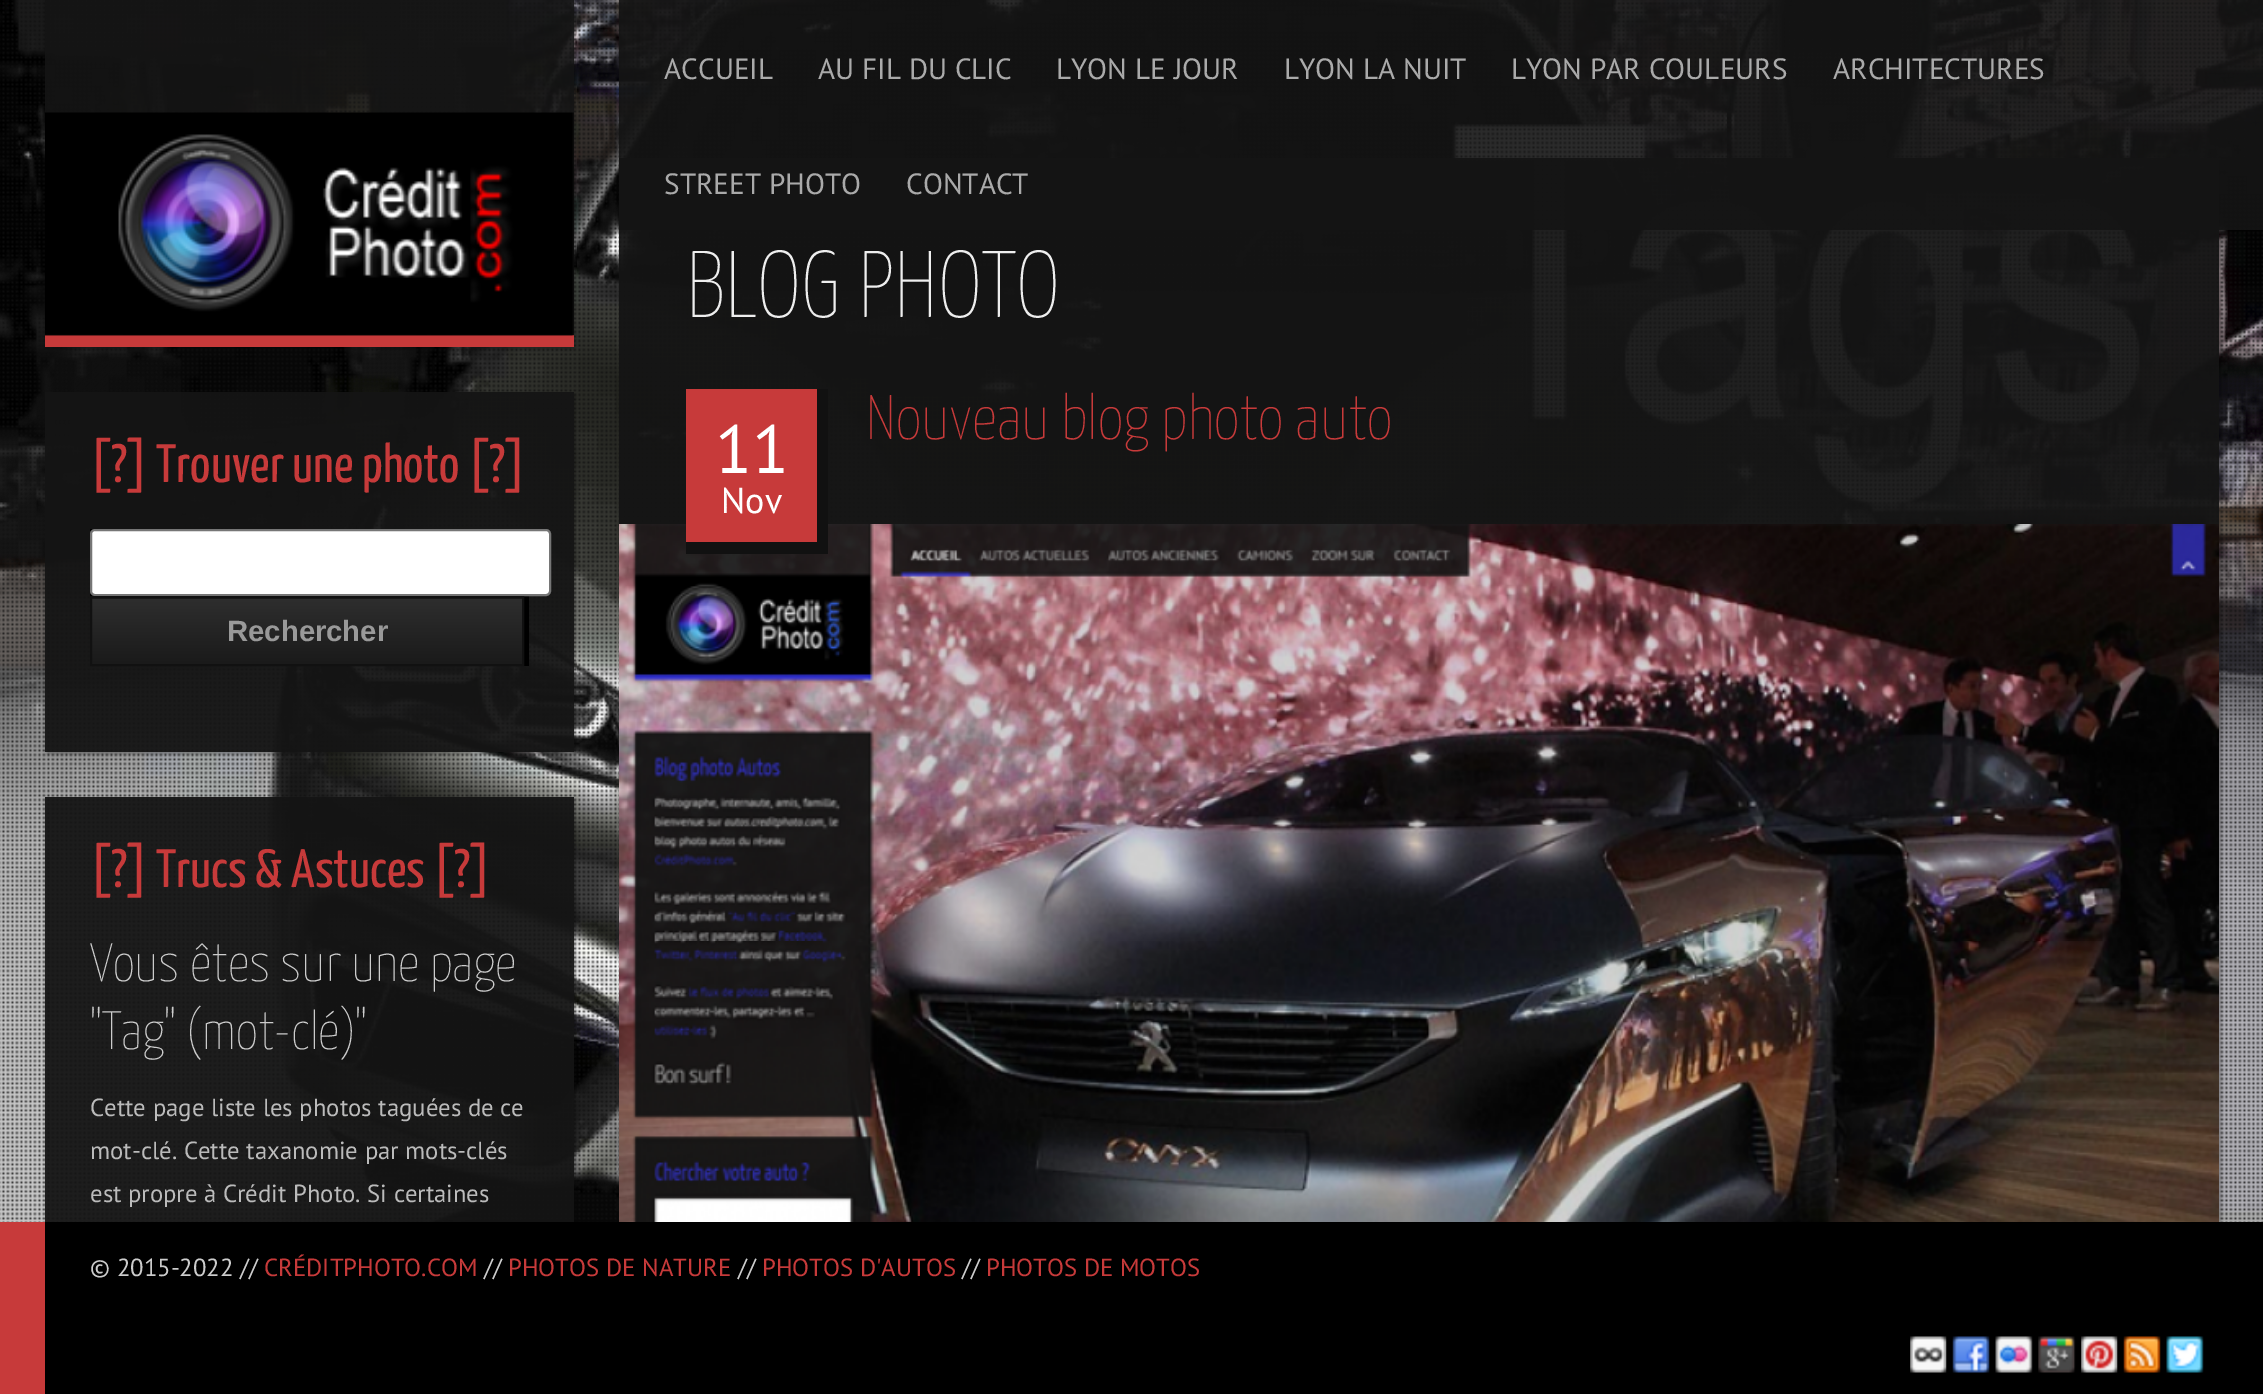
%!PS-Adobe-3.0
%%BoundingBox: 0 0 2263 1394
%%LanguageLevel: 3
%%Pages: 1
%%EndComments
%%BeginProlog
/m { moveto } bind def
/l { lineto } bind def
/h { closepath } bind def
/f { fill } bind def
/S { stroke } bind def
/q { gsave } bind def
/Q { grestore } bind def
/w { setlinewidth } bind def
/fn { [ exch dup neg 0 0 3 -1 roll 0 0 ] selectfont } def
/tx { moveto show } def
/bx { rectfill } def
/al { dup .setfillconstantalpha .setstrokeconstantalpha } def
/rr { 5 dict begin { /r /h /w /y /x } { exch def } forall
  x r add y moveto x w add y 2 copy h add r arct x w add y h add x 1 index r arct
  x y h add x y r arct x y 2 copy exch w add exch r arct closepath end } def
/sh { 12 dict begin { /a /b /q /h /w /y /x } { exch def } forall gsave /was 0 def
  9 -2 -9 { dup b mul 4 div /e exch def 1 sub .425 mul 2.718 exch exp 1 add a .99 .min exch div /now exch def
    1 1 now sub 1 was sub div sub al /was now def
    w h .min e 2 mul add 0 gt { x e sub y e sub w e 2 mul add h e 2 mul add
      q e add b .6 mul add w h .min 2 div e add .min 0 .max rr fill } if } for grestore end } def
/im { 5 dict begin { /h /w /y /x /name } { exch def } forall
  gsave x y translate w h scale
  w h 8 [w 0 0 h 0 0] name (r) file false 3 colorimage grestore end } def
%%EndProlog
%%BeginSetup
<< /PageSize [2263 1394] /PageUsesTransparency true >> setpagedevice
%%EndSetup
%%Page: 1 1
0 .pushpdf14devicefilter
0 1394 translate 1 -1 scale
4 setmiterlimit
1 setgray
0 0 2263 1394 bx
(image0.raw) 0 0 2263 1222 im
(image1.raw) 0 0 2263 1222 im
q
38 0 m 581 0 l 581 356 l 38 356 l h 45 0 m 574 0 l 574 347 l 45 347 l h eoclip newpath
0 setgray
45 2 529 347 0 2 0.25 sh
Q
0.9 al
0.078 setgray
45 0 529 335 bx
1 al
0.78 0.227 0.227 setrgbcolor
45 335 529 12 bx
(image2.raw) 45 112 529 224 im
q
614 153 m 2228 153 l 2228 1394 l 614 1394 l h 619 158 m 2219 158 l 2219 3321 l 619 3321 l h eoclip newpath
0 setgray
621 160 1600 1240 0 2 0.3 sh
Q
0.95 al
0.078 setgray
619 158 1600 366 bx
0.9 al
619 0 1644 230 bx
/PTSans-Regular 29.25 fn
1 al
0.667 setgray
(ACCUEIL) 664 79 tx
(AU FIL DU CLIC) 818 79 tx
(LYON LE JOUR) 1056 79 tx
(LYON LA NUIT) 1284 79 tx
(LYON PAR COULEURS) 1511 79 tx
(ARCHITECTURES) 1833 79 tx
(STREET PHOTO) 664 194 tx
(CONTACT) 906 194 tx
/YanoneKaffeesatz-ExtraLight 94.5 fn
0.933 setgray
(BLOG PHOTO) 686 317 tx
(image3.raw) 619 524 1600 698 im
0.78 0.227 0.227 setrgbcolor
686 389 131 153 bx
0.067 setgray
817 389 11 153 bx
686 542 142 12 bx
/PTSans-Regular 68 fn
1 setgray
(11) 715 473 tx
/PTSans-Regular 36 fn
(Nov) 721 513 tx
/YanoneKaffeesatz-ExtraLight 63 fn
0.78 0.227 0.227 setrgbcolor
(Nouveau blog photo auto) 866 439 tx
q
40 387 m 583 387 l 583 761 l 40 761 l h 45 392 m 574 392 l 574 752 l 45 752 l h eoclip newpath
0 setgray
47 394 529 360 0 2 0.3 sh
Q
0.95 al
0.078 setgray
45 392 529 360 bx
/YanoneKaffeesatz-Regular 54 fn
1 al
0.78 0.227 0.227 setrgbcolor
([?] Trouver une photo [?]) 90 482 tx
0 setgray
90 529 439 137 bx
1 setgray
91 530 459 65 4 rr q f Q
0.463 setgray
2 w
S
q 90 598 m 524 598 l 524 599 l 90 599 l h clip newpath
<< /ShadingType 2 /ColorSpace /DeviceRGB /Coords [92 533 92 599] /Extend [true true] /Function << /FunctionType 2 /Domain [0 1] /C0 [0.18 0.18 0.18] /C1 [0.102 0.102 0.102] /N 1 >> >> shfill Q
q 92 599 m 522 599 l 522 664 l 92 664 l h clip newpath
<< /ShadingType 2 /ColorSpace /DeviceRGB /Coords [92 599 92 664] /Extend [true true] /Function << /FunctionType 2 /Domain [0 1] /C0 [0.18 0.18 0.18] /C1 [0.102 0.102 0.102] /N 1 >> >> shfill Q
0.067 setgray
91 597 432 68 rectstroke
/LiberationSans-Bold 29.25 fn
0.6 setgray
(Rechercher) 227 641 tx
q
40 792 m 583 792 l 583 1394 l 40 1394 l h 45 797 m 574 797 l 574 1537 l 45 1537 l h eoclip newpath
0 setgray
47 799 529 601 0 2 0.3 sh
Q
0.95 al
0.078 setgray
45 797 529 425 bx
/YanoneKaffeesatz-Regular 54 fn
1 al
0.78 0.227 0.227 setrgbcolor
([?] Trucs & Astuces [?]) 90 887 tx
/YanoneKaffeesatz-ExtraLight 54 fn
0.8 setgray
(Vous êtes sur une page) 90 981 tx
("Tag" \(mot-clé\)") 90 1049 tx
/PTSans-Regular 24.75 fn
0.733 setgray
(Cette page liste les photos taguées de ce) 90 1116 tx
(mot-clé. Cette taxanomie par mots-clés) 90 1159 tx
(est propre à Crédit Photo. Si certaines) 90 1202 tx
0 setgray
45 1222 2218 172 bx
0.78 0.227 0.227 setrgbcolor
0 1222 45 172 bx
0.8 setgray
(© 2015-2022 //) 90 1276 tx
0.78 0.227 0.227 setrgbcolor
(CRÉDITPHOTO.COM) 264 1276 tx
0.8 setgray
(//) 484 1276 tx
0.78 0.227 0.227 setrgbcolor
(PHOTOS DE NATURE) 508 1276 tx
0.8 setgray
(//) 738 1276 tx
0.78 0.227 0.227 setrgbcolor
(PHOTOS D'AUTOS) 762 1276 tx
0.8 setgray
(//) 962 1276 tx
0.78 0.227 0.227 setrgbcolor
(PHOTOS DE MOTOS) 986 1276 tx
(image4.raw) 1910 1336 37 37 im
(image5.raw) 1952 1336 38 37 im
(image6.raw) 1995 1336 38 37 im
(image7.raw) 2038 1336 38 37 im
(image8.raw) 2081 1336 37 37 im
(image9.raw) 2123 1336 38 37 im
(image10.raw) 2166 1336 38 37 im
.poppdf14devicefilter showpage
%%EOF
